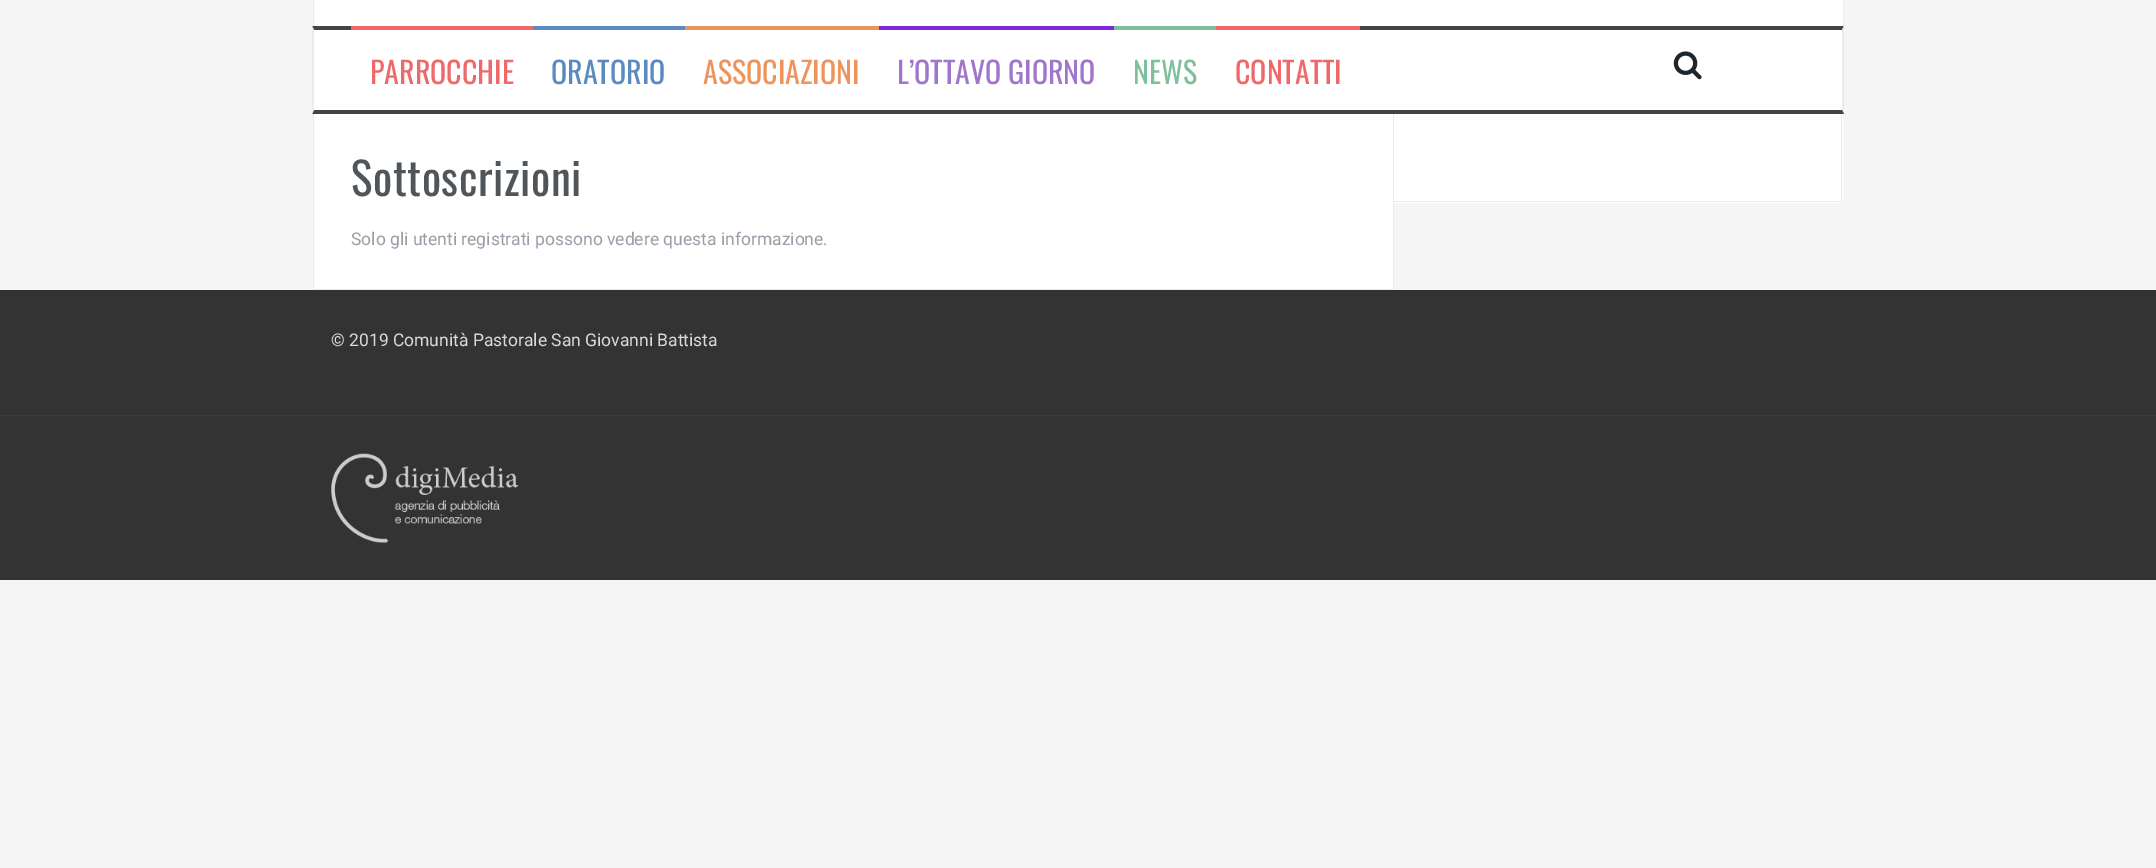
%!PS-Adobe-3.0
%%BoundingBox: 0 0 2156 868
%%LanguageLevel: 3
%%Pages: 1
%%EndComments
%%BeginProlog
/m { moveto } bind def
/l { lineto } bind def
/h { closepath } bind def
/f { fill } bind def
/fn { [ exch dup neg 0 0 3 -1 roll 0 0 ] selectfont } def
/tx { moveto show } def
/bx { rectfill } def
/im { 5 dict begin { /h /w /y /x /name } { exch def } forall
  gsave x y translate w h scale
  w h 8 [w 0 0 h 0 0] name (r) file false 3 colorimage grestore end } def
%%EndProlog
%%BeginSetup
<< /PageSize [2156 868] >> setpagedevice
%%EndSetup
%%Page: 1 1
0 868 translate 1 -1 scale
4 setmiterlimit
0.961 setgray
0 0 2156 868 bx
1 setgray
314 0 1529 26 bx
0.922 setgray
1843 0 1 26 bx
313 0 1 26 bx
1 setgray
314 30 1528 80 bx
0.267 setgray
312 26 m 1844 26 l 1842 30 l 314 30 l h f
0.922 setgray
1844 26 m 1844 114 l 1842 110 l 1842 30 l h f
0.267 setgray
1844 114 m 312 114 l 314 110 l 1842 110 l h f
0.922 setgray
312 114 m 312 26 l 314 30 l 314 110 l h f
0.941 0.412 0.416 setrgbcolor
351 26 182 4 bx
/Oswald-Regular 30 fn
(PARROCCHIE) 370 84 tx
0.357 0.541 0.753 setrgbcolor
533 26 152 4 bx
(ORATORIO) 551 84 tx
0.929 0.58 0.365 setrgbcolor
685 26 194 4 bx
(ASSOCIAZIONI) 703 84 tx
0.51 0.141 0.89 setrgbcolor
879 26 235 4 bx
0.624 0.463 0.792 setrgbcolor
(L’OTTAVO GIORNO) 897 84 tx
0.498 0.753 0.608 setrgbcolor
1114 26 102 4 bx
(NEWS) 1133 84 tx
0.941 0.412 0.416 setrgbcolor
1216 26 144 4 bx
(CONTATTI) 1235 84 tx
(image0.raw) 1673 51 29 29 im
1 setgray
314 114 1079 175 bx
0.922 setgray
1393 203 1 87 bx
313 289 1081 1 bx
313 114 1 176 bx
/Oswald-Regular 45 fn
0.314 0.333 0.349 setrgbcolor
351 196 m 0.6 0 (Sottoscrizioni) ashow
/Roboto-Regular 17.5 fn
0.596 0.624 0.659 setrgbcolor
(Solo gli utenti registrati possono vedere questa informazione.) 351 245 tx
1 setgray
1394 114 449 89 bx
0.922 setgray
1841 114 1 89 bx
1393 201 450 1 bx
1393 114 1 89 bx
0.2 setgray
0 290 2156 125 bx
0.235 setgray
0 415 2156 1 bx
0.855 setgray
(© 2019 Comunità Pastorale San Giovanni Battista) 331 346 tx
0.2 setgray
0 416 2156 164 bx
(image1.raw) 331 453 188 90 im
showpage
%%EOF
